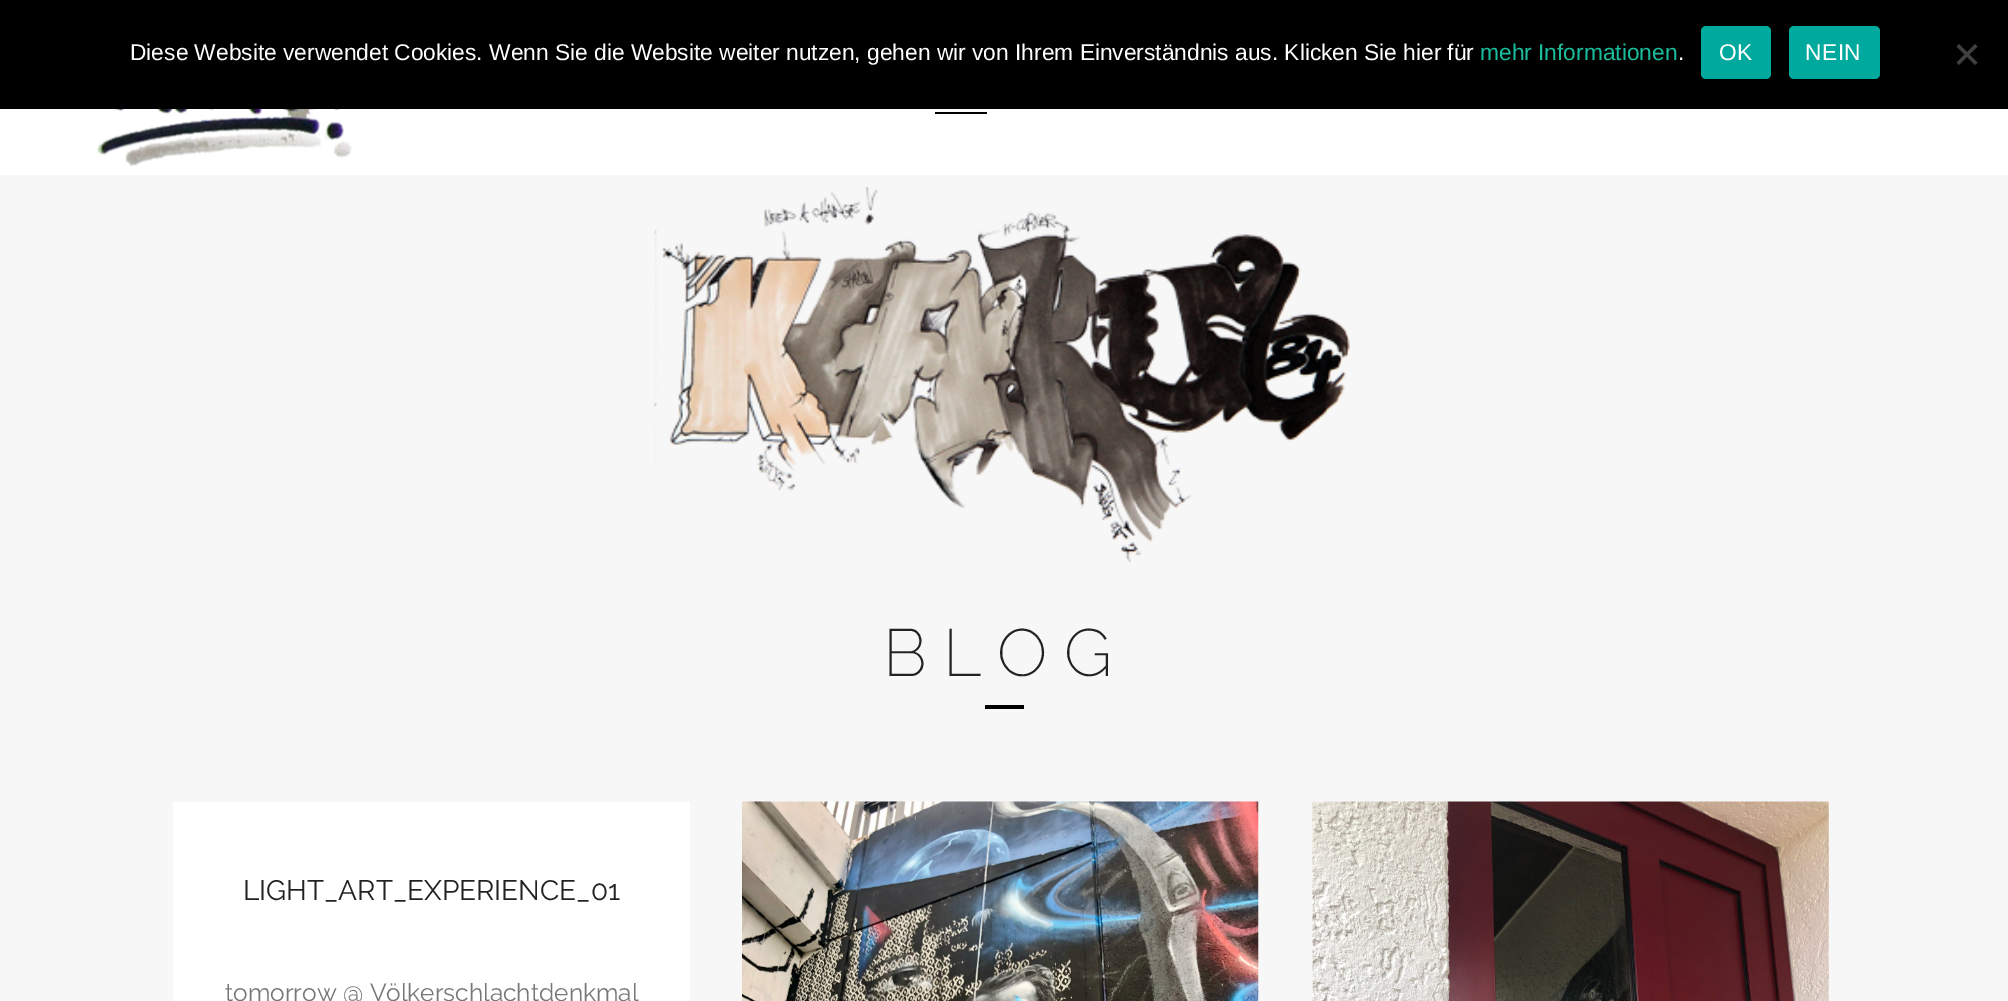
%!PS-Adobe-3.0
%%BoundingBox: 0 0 2008 1001
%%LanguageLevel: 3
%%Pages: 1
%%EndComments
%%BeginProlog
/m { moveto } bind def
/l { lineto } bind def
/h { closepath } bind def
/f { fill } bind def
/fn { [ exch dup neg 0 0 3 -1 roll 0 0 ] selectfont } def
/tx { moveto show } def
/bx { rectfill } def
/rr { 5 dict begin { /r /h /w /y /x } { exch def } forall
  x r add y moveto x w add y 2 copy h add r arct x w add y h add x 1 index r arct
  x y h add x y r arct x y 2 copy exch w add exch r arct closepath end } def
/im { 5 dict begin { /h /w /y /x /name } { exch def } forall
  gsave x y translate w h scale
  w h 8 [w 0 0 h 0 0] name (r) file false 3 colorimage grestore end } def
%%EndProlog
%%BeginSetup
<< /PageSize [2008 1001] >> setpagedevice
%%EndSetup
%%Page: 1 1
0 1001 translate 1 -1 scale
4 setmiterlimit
0.969 setgray
0 0 2008 1001 bx
0 setgray
0 0 2008 109 bx
/LiberationSans-Regular 22.75 fn
1 setgray
(Diese Website verwendet Cookies. Wenn Sie die Website weiter nutzen, gehen wir von Ihrem Einverständnis aus. Klicken Sie hier für) 130 60 tx
0.102 0.737 0.612 setrgbcolor
(mehr Informationen) 1480 60 tx
1 setgray
(.) 1678 60 tx
0 0.663 0.616 setrgbcolor
1701 26 70 53 5 rr f
1 setgray
1719 60 m 0.5 0 (OK) ashow
0 0.663 0.616 setrgbcolor
1789 26 91 53 5 rr f
1 setgray
1805 60 m 0.5 0 (NEIN) ashow
0.251 setgray
1975 44 m 1977.5 46.5 l 1959 65 l 1956.5 62.5 l h f
1956.5 46.5 m 1959 44 l 1977.5 62.5 l 1975 65 l h f
1 setgray
0 109 2008 66 bx
(image0.raw) 96 109 256 58 im
0 setgray
935 112 52 2 bx
(image1.raw) 654 186 696 376 im
/Raleway-ExtraLight 66.5 fn
0.133 setgray
883 676 m 16 0 (BLOG) ashow
0 setgray
985 705 39 4 bx
1 setgray
173 802 517 199 bx
/Raleway-Regular 28 fn
0.133 setgray
(LIGHT_ART_EXPERIENCE_01) 243 900 tx
/Raleway-Regular 24.5 fn
0.467 setgray
(tomorrow @ Völkerschlachtdenkmal) 225 1001 tx
(image2.raw) 742 801 517 200 im
(image3.raw) 1312 801 517 200 im
showpage
%%EOF
